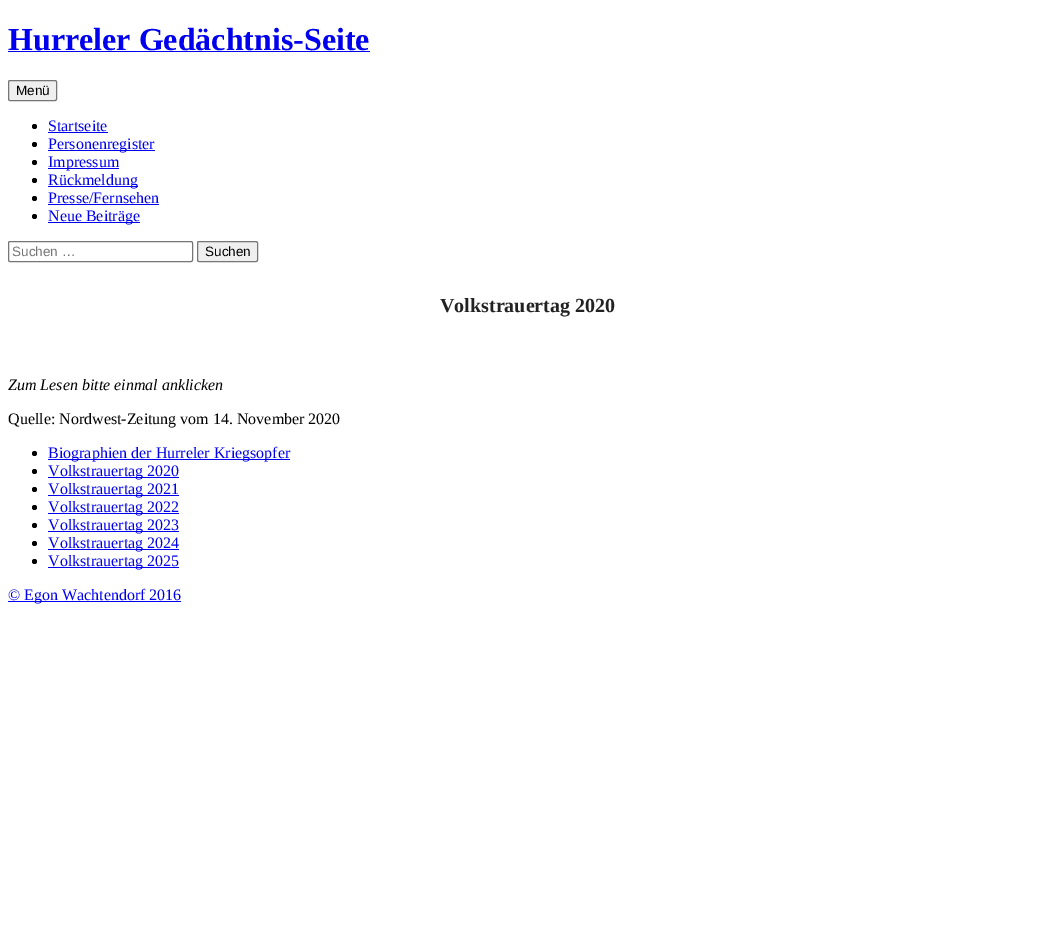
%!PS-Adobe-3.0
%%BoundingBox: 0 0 1055 948
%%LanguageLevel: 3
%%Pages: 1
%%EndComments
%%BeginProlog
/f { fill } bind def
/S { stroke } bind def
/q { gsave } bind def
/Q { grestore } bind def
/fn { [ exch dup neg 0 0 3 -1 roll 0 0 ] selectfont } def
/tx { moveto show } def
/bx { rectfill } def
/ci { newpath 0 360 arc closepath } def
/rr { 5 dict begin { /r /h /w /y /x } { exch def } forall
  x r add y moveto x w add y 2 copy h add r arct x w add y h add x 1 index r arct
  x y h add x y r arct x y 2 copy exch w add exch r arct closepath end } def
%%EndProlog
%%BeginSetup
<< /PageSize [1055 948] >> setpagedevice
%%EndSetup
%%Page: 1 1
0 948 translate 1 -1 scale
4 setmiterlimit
1 setgray
0 0 1055 948 bx
/LiberationSerif-Bold 32 fn
0 0 0.933 setrgbcolor
(Hurreler Gedächtnis-Seite) 8 50 tx
8 51 362 1 bx
0.937 setgray
8.5 80.5 48 20 1.5 rr q f Q
0.463 setgray
S
/LiberationSans-Regular 13.5 fn
0 setgray
(Menü) 16 95 tx
34.5 126.5 2.5 ci f
/LiberationSerif-Regular 16 fn
0 0 0.933 setrgbcolor
(Startseite) 48 131 tx
48 132 60 1 bx
0 setgray
34.5 144.5 2.5 ci f
0 0 0.933 setrgbcolor
48 150 107 1 bx
(Personenregister) 48 149 tx
0 setgray
34.5 162.5 2.5 ci f
0 0 0.933 setrgbcolor
48 168 71 1 bx
(Impressum) 48 167 tx
0 setgray
34.5 180.5 2.5 ci f
0 0 0.933 setrgbcolor
48 186 90 1 bx
(Rückmeldung) 48 185 tx
0 setgray
34.5 198.5 2.5 ci f
0 0 0.933 setrgbcolor
(Presse/Fernsehen) 48 203 tx
48 204 111 1 bx
0 setgray
34.5 216.5 2.5 ci f
0 0 0.933 setrgbcolor
48 222 92 1 bx
(Neue Beiträge) 48 221 tx
0.463 setgray
8.5 241.5 184 20 1.5 rr S
/LiberationSans-Regular 13.5 fn
0.459 setgray
(Suchen …) 12 256 tx
0.937 setgray
197.5 241.5 60 20 1.5 rr q f Q
0.463 setgray
S
0 setgray
(Suchen) 205 256 tx
/LiberationSerif-Bold 20 fn
0.133 setgray
(Volkstrauertag 2020) 440 312 tx
/LiberationSerif-Italic 16 fn
0 setgray
(Zum Lesen bitte einmal anklicken) 8 390 tx
/LiberationSerif-Regular 16 fn
(Quelle: Nordwest-Zeitung vom 14. November 2020) 8 424 tx
34.5 453.5 2.5 ci f
0 0 0.933 setrgbcolor
48 459 242 1 bx
(Biographien der Hurreler Kriegsopfer) 48 458 tx
0 setgray
34.5 471.5 2.5 ci f
0 0 0.933 setrgbcolor
48 477 131 1 bx
(Volkstrauertag 2020) 48 476 tx
0 setgray
34.5 489.5 2.5 ci f
0 0 0.933 setrgbcolor
48 495 131 1 bx
(Volkstrauertag 2021) 48 494 tx
0 setgray
34.5 507.5 2.5 ci f
0 0 0.933 setrgbcolor
48 513 131 1 bx
(Volkstrauertag 2022) 48 512 tx
0 setgray
34.5 525.5 2.5 ci f
0 0 0.933 setrgbcolor
48 531 131 1 bx
(Volkstrauertag 2023) 48 530 tx
0 setgray
34.5 543.5 2.5 ci f
0 0 0.933 setrgbcolor
48 549 131 1 bx
(Volkstrauertag 2024) 48 548 tx
0 setgray
34.5 561.5 2.5 ci f
0 0 0.933 setrgbcolor
48 567 131 1 bx
(Volkstrauertag 2025) 48 566 tx
8 601 173 1 bx
(© Egon Wachtendorf 2016) 8 600 tx
showpage
%%EOF
